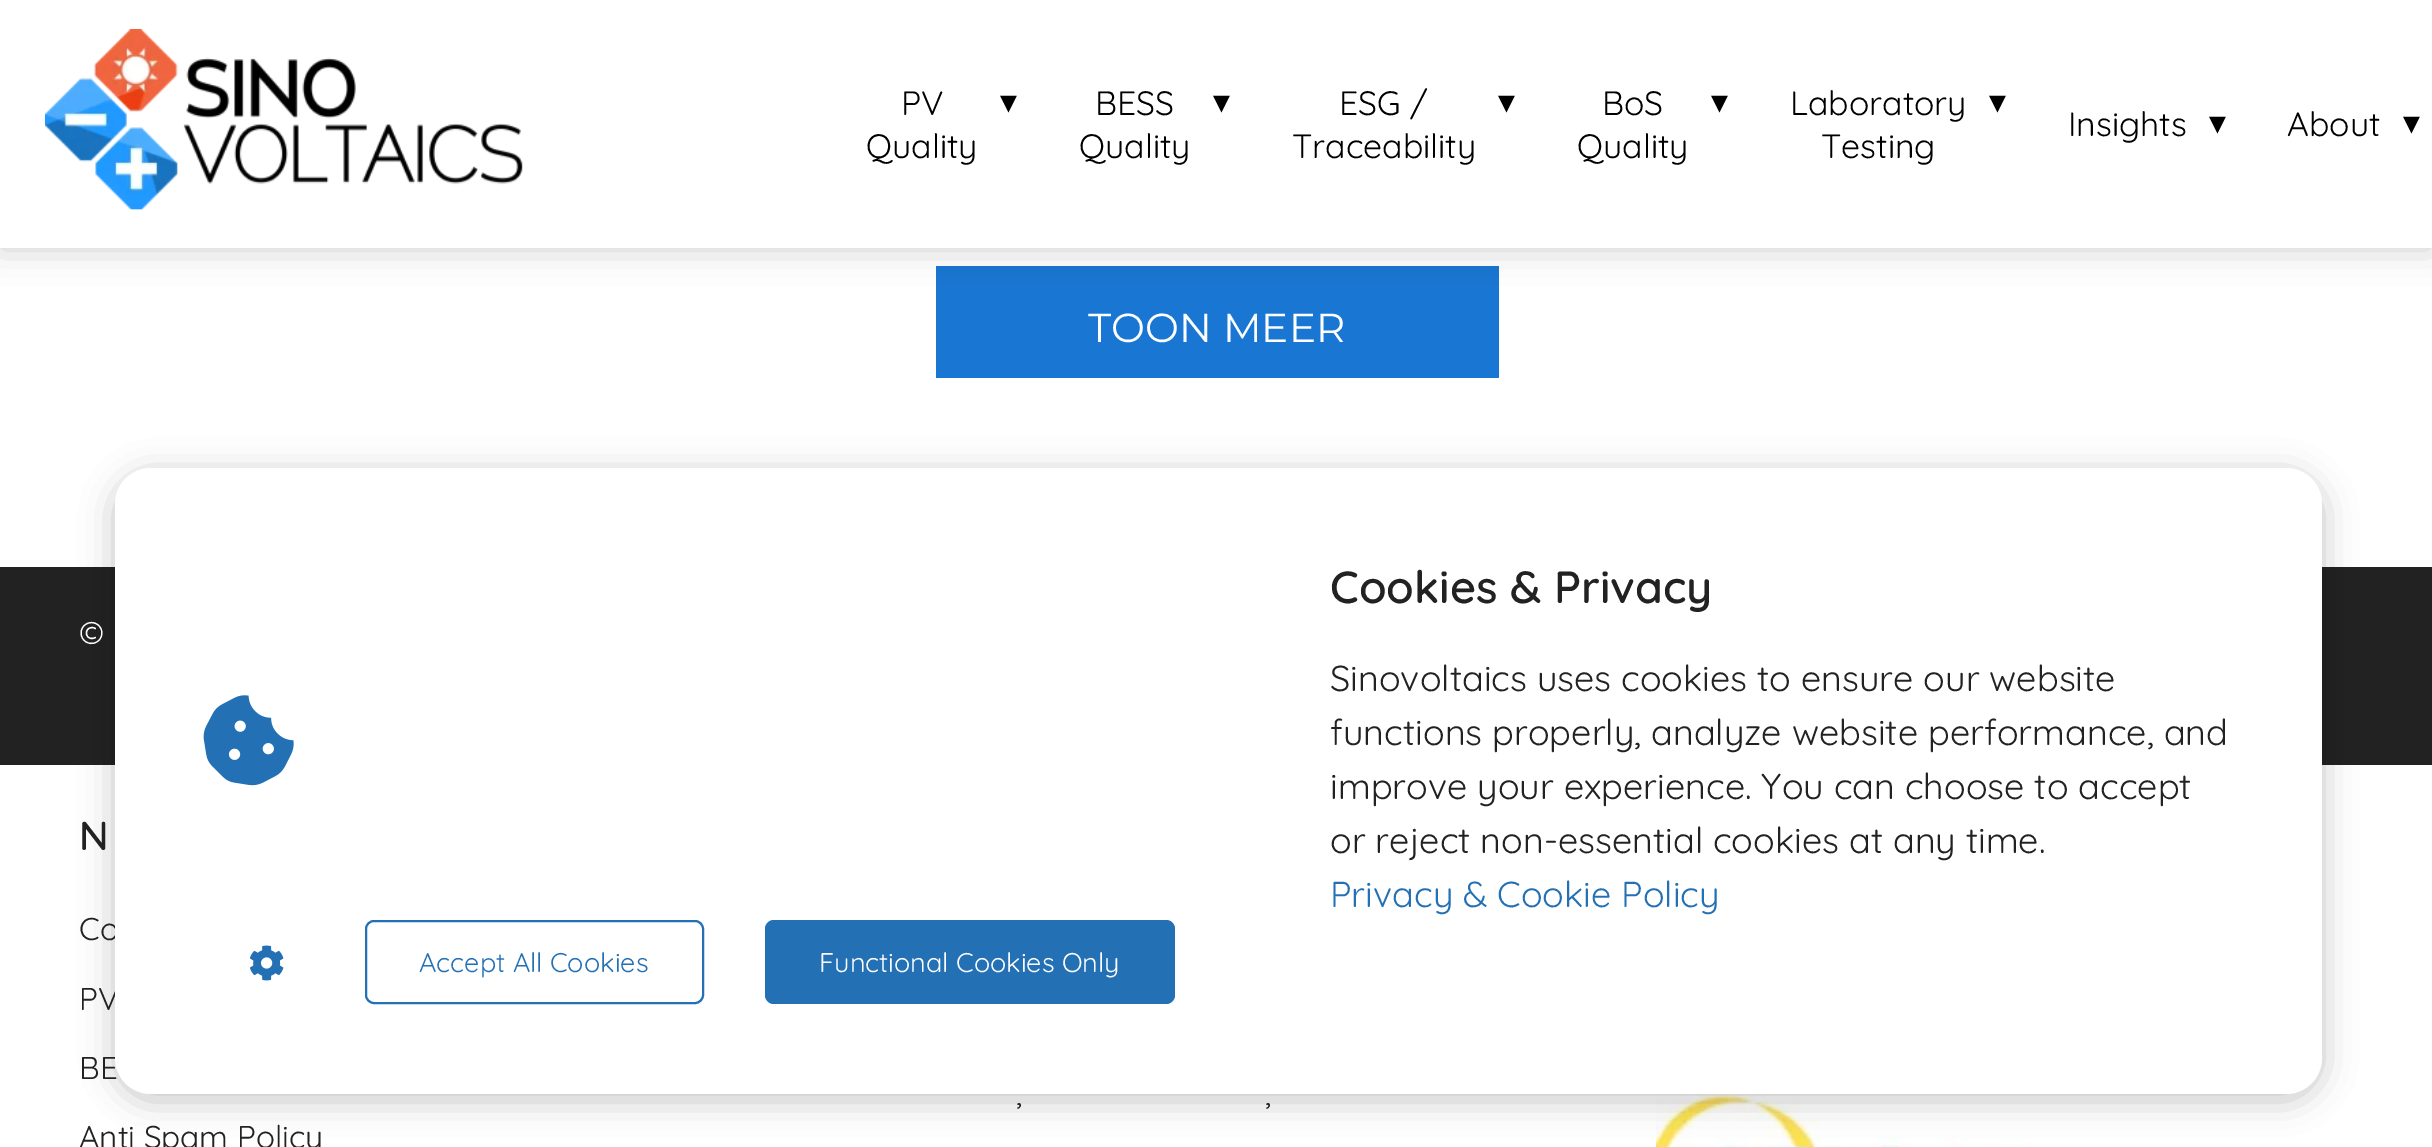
%!PS-Adobe-3.0
%%BoundingBox: 0 0 2432 1147
%%LanguageLevel: 3
%%Pages: 1
%%EndComments
%%BeginProlog
/m { moveto } bind def
/l { lineto } bind def
/c { curveto } bind def
/h { closepath } bind def
/f { fill } bind def
/S { stroke } bind def
/q { gsave } bind def
/Q { grestore } bind def
/w { setlinewidth } bind def
/fn { [ exch dup neg 0 0 3 -1 roll 0 0 ] selectfont } def
/tx { moveto show } def
/bx { rectfill } def
/al { dup .setfillconstantalpha .setstrokeconstantalpha } def
/rr { 5 dict begin { /r /h /w /y /x } { exch def } forall
  x r add y moveto x w add y 2 copy h add r arct x w add y h add x 1 index r arct
  x y h add x y r arct x y 2 copy exch w add exch r arct closepath end } def
/sh { 12 dict begin { /a /b /q /h /w /y /x } { exch def } forall gsave /was 0 def
  9 -2 -9 { dup b mul 4 div /e exch def 1 sub .425 mul 2.718 exch exp 1 add a .99 .min exch div /now exch def
    1 1 now sub 1 was sub div sub al /was now def
    w h .min e 2 mul add 0 gt { x e sub y e sub w e 2 mul add h e 2 mul add
      q e add b .6 mul add w h .min 2 div e add .min 0 .max rr fill } if } for grestore end } def
/im { 5 dict begin { /h /w /y /x /name } { exch def } forall
  gsave x y translate w h scale
  w h 8 [w 0 0 h 0 0] name (r) file false 3 colorimage grestore end } def
%%EndProlog
%%BeginSetup
<< /PageSize [2432 1147] /PageUsesTransparency true >> setpagedevice
%%EndSetup
%%Page: 1 1
0 .pushpdf14devicefilter
0 1147 translate 1 -1 scale
4 setmiterlimit
1 setgray
0 0 2432 1147 bx
0.098 0.463 0.824 setrgbcolor
936 266 563 112 bx
0 setgray
0 0 2432 248 0 17 0.2 sh
1 setgray
0 0 2432 248 bx
(image0.raw) 45 29 478 181 im
/Quicksand-Regular 33.75 fn
0 setgray
(PV) 901 115 tx
/DejaVuSans-Regular 33.75 fn
(▾) 1000 113 tx
/Quicksand-Regular 33.75 fn
(Quality) 866 158 tx
(BESS) 1095 115 tx
/DejaVuSans-Regular 33.75 fn
(▾) 1213 113 tx
/Quicksand-Regular 33.75 fn
(Quality) 1079 158 tx
(ESG /) 1339 115 tx
/DejaVuSans-Regular 33.75 fn
(▾) 1498 113 tx
/Quicksand-Regular 33.75 fn
(Traceability) 1292 158 tx
(BoS) 1602 115 tx
/DejaVuSans-Regular 33.75 fn
(▾) 1711 113 tx
/Quicksand-Regular 33.75 fn
(Quality) 1577 158 tx
(Laboratory) 1790 115 tx
/DejaVuSans-Regular 33.75 fn
(▾) 1989 113 tx
/Quicksand-Regular 33.75 fn
(Testing) 1821 158 tx
(Insights) 2068 136 tx
/DejaVuSans-Regular 33.75 fn
(▾) 2209 134 tx
/Quicksand-Regular 33.75 fn
(About) 2287 136 tx
/DejaVuSans-Regular 33.75 fn
(▾) 2403 134 tx
/Montserrat-Thin 40.5 fn
1 setgray
(TOON MEER) 1088 342 tx
0.133 setgray
0 567 2432 198 bx
(image3.raw) 1656 1094 371 53 im
q
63 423 m 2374 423 l 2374 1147 l 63 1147 l h 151 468 m 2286 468 l 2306 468 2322 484 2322 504 c 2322 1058 l 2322 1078 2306 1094 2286 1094 c 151 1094 l 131 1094 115 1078 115 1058 c 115 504 l 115 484 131 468 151 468 c h eoclip newpath
0 setgray
115 475 2207 625 36 17 0.24 sh
Q
/Quicksand-Regular 31.5 fn
(Co) 79 940 tx
(PV) 79 1010 tx
(BE) 79 1079 tx
1 setgray
115 468 2207 626 36 rr f
(image1.raw) 203 695 91 91 im
/Quicksand-SemiBold 45 fn
0.133 setgray
(Cookies & Privacy) 1330 603 tx
/Quicksand-Regular 36 fn
(Sinovoltaics uses cookies to ensure our website) 1330 691 tx
(functions properly, analyze website performance, and) 1330 745 tx
(improve your experience. You can choose to accept) 1330 799 tx
(or reject non-essential cookies at any time.) 1330 853 tx
0.137 0.439 0.71 setrgbcolor
(Privacy & Cookie Policy) 1330 907 tx
(image2.raw) 250 945 34 36 im
2 w
366 921 337 82 8 rr S
/Quicksand-Regular 27 fn
(Accept All Cookies) 419 972 tx
765 920 410 84 9 rr f
1 setgray
(Functional Cookies Only) 819 972 tx
/Quicksand-Regular 31.5 fn
(©) 79 644 tx
/Quicksand-SemiBold 40.5 fn
0.133 setgray
(N) 79 850 tx
/Quicksand-Regular 31.5 fn
(Anti Spam Policy) 79 1148 tx
(,) 1016 1105 tx
(,) 1265 1105 tx
.poppdf14devicefilter showpage
%%EOF
